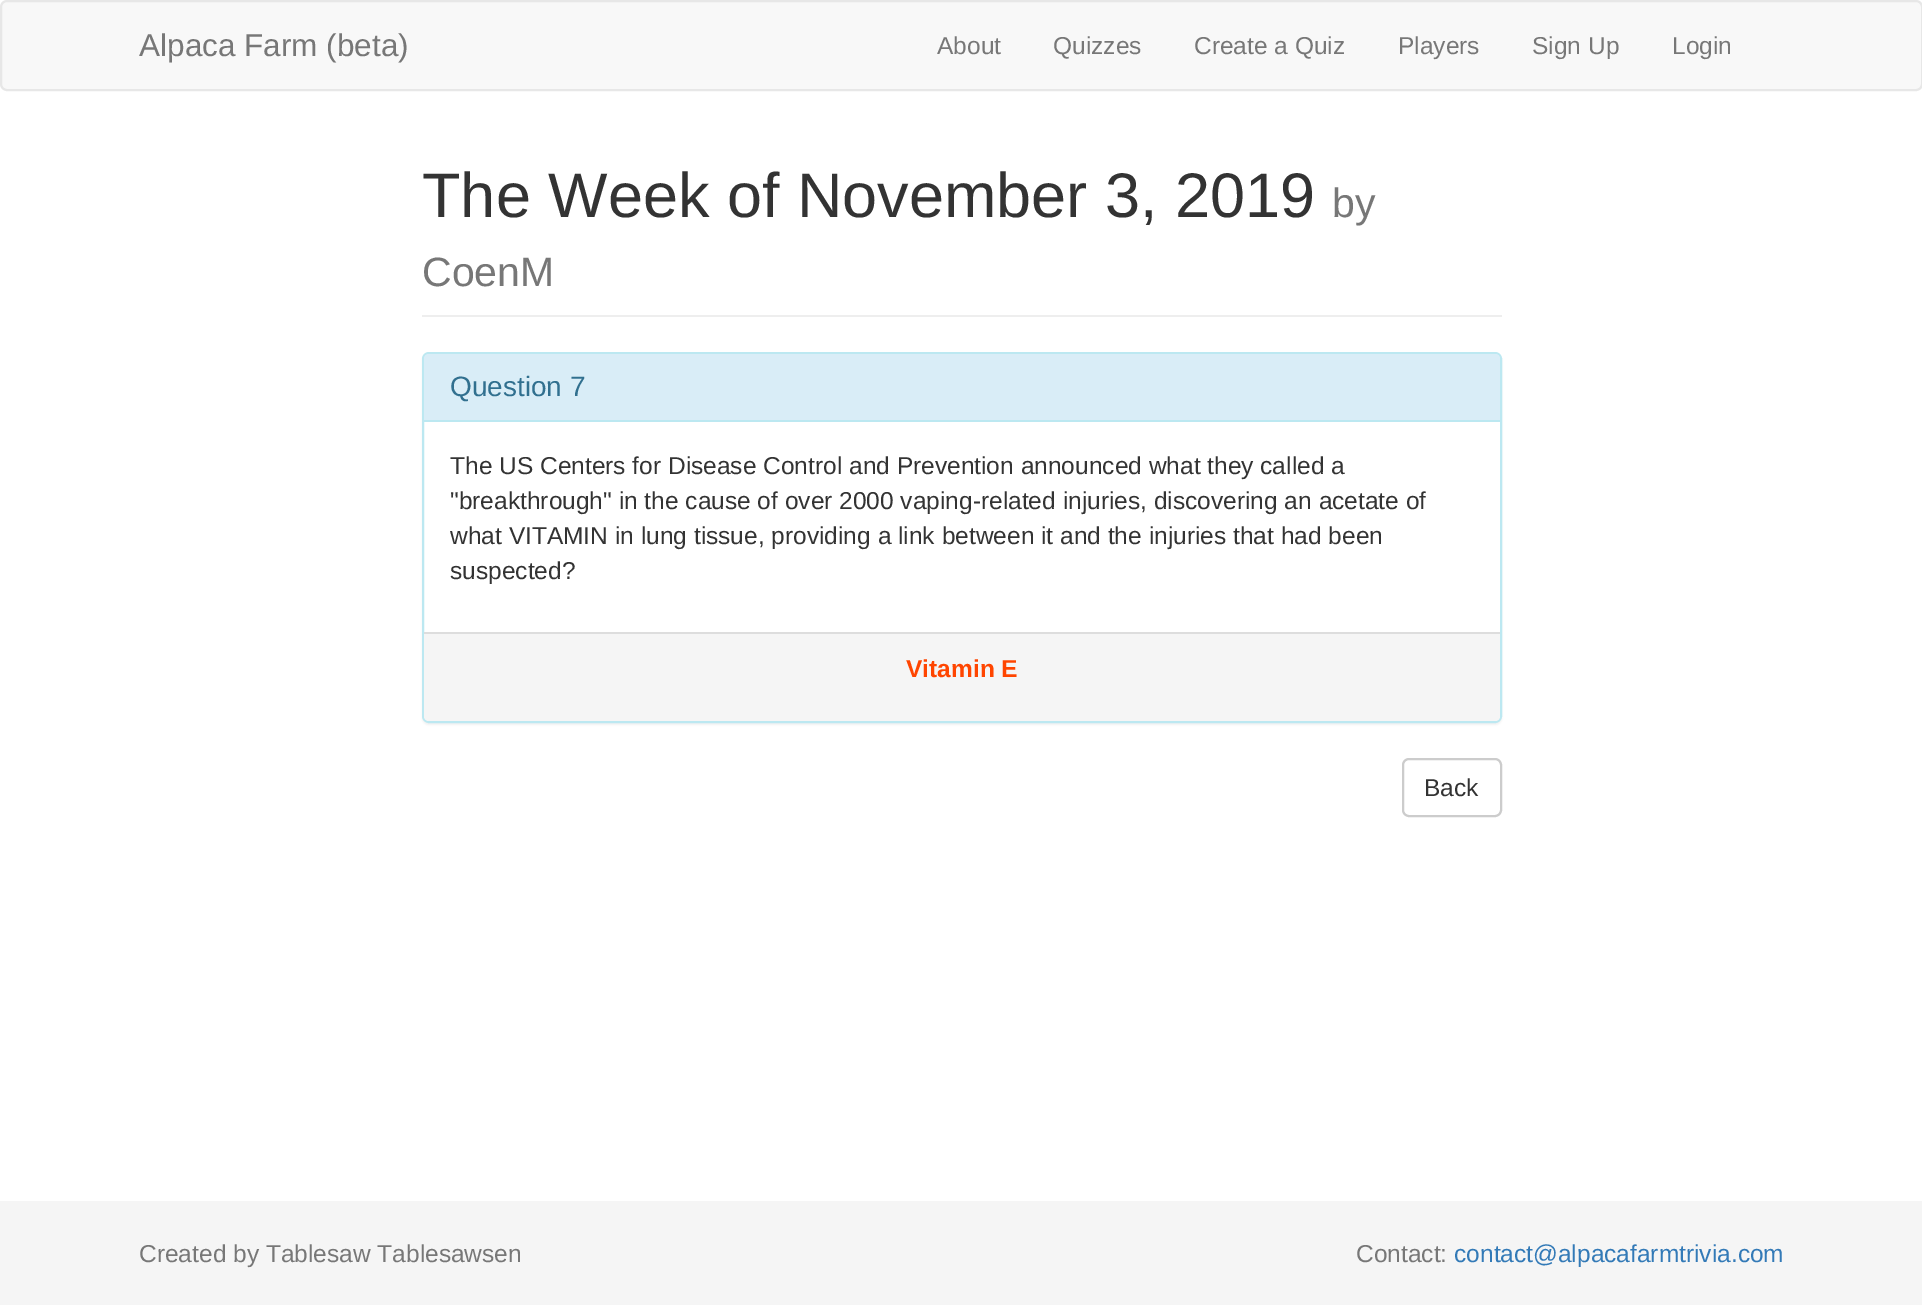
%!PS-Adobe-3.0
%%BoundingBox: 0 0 1922 1305
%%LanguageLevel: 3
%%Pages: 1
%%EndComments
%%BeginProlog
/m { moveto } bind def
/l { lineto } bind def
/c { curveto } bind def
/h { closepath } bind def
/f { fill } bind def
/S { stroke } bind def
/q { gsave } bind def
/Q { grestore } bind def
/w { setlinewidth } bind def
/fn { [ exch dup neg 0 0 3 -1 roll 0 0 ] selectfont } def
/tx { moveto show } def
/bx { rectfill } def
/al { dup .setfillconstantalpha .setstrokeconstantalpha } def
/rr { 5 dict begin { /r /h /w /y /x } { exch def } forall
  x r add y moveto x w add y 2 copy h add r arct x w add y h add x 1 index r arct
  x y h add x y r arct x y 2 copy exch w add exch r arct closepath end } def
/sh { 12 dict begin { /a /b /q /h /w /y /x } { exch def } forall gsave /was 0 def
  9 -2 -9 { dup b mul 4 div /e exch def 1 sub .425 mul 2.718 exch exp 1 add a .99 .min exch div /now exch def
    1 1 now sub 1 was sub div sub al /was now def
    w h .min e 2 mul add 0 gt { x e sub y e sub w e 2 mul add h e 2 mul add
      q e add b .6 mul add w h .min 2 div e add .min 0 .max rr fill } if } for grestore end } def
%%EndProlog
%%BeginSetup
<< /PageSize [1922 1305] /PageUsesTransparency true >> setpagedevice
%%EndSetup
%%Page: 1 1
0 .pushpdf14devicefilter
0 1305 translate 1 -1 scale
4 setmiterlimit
1 setgray
0 0 1922 1305 bx
0.973 setgray
1 1 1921 89 6 rr q f Q
0.906 setgray
2 w
S
/LiberationSans-Regular 31.5 fn
0.467 setgray
(Alpaca Farm \(beta\)) 139 56 tx
/LiberationSans-Regular 24.5 fn
(About) 937 54 tx
(Quizzes) 1053 54 tx
(Create a Quiz) 1194 54 tx
(Players) 1398 54 tx
(Sign Up) 1532 54 tx
(Login) 1672 54 tx
0.933 setgray
422 315 1080 2 bx
/LiberationSans-Regular 63 fn
0.2 setgray
(The Week of November 3, 2019) 422 217 tx
/LiberationSans-Regular 41 fn
0.467 setgray
(by) 1332 217 tx
(CoenM) 422 286 tx
0 setgray
422 354 1080 371 7 1 0.05 sh
1 setgray
423 353 1078 369 6 rr q f Q
0.737 0.91 0.945 setrgbcolor
S
0.851 0.929 0.969 setrgbcolor
429 354 m 1495 354 l 1498 354 1500 356 1500 359 c 1500 422 l 424 422 l 424 359 l 424 356 426 354 429 354 c h f
0.737 0.91 0.945 setrgbcolor
424 420 1076 2 bx
/LiberationSans-Regular 28 fn
0.192 0.439 0.561 setrgbcolor
(Question 7) 450 396 tx
/LiberationSans-Regular 24.5 fn
0.2 setgray
(The US Centers for Disease Control and Prevention announced what they called a) 450 474 tx
("breakthrough" in the cause of over 2000 vaping-related injuries, discovering an acetate of) 450 509 tx
(what VITAMIN in lung tissue, providing a link between it and the injuries that had been) 450 544 tx
(suspected?) 450 579 tx
0.961 setgray
424 632 m 1500 632 l 1500 716 l 1500 719 1498 721 1495 721 c 429 721 l 426 721 424 719 424 716 c h f
0.867 setgray
424 632 1076 2 bx
/LiberationSans-Bold 24.5 fn
1 0.271 0 setrgbcolor
(Vitamin E) 906 677 tx
0.8 setgray
1403 759 98 57 6 rr S
/LiberationSans-Regular 24.5 fn
0.2 setgray
(Back) 1424 796 tx
0.961 setgray
0 1201 1922 104 bx
0.467 setgray
(Created by Tablesaw Tablesawsen) 139 1262 tx
(Contact:) 1356 1262 tx
0.2 0.478 0.718 setrgbcolor
(contact@alpacafarmtrivia.com) 1454 1262 tx
.poppdf14devicefilter showpage
%%EOF
